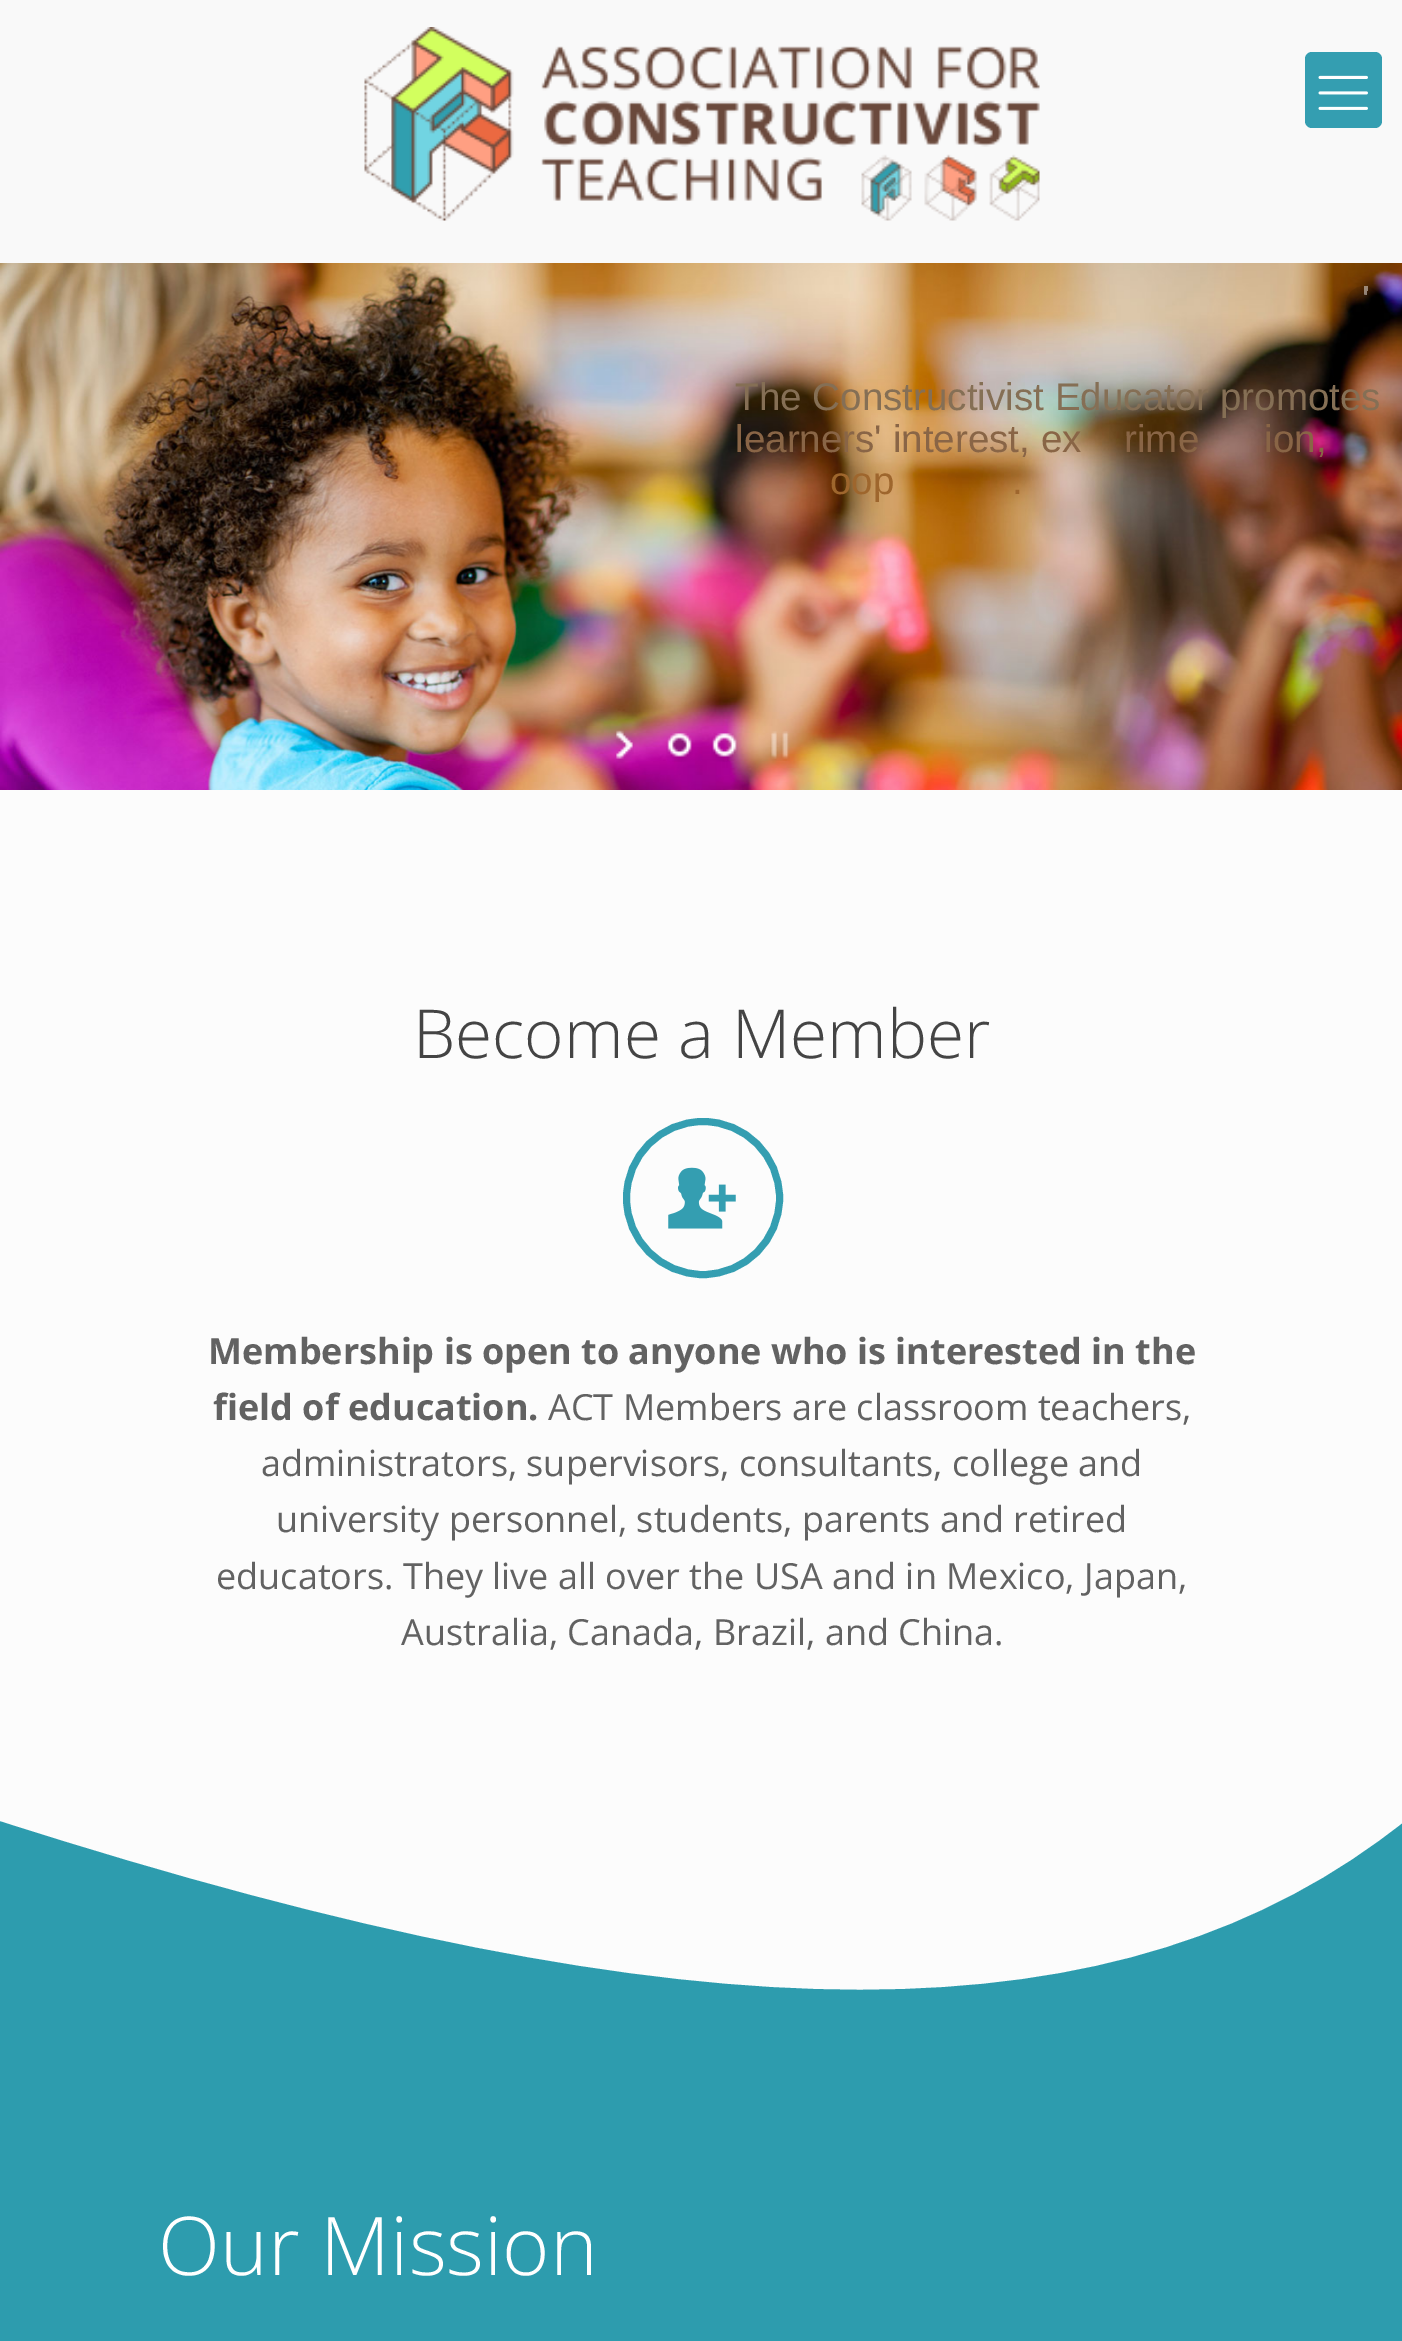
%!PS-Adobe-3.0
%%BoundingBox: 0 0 1402 2341
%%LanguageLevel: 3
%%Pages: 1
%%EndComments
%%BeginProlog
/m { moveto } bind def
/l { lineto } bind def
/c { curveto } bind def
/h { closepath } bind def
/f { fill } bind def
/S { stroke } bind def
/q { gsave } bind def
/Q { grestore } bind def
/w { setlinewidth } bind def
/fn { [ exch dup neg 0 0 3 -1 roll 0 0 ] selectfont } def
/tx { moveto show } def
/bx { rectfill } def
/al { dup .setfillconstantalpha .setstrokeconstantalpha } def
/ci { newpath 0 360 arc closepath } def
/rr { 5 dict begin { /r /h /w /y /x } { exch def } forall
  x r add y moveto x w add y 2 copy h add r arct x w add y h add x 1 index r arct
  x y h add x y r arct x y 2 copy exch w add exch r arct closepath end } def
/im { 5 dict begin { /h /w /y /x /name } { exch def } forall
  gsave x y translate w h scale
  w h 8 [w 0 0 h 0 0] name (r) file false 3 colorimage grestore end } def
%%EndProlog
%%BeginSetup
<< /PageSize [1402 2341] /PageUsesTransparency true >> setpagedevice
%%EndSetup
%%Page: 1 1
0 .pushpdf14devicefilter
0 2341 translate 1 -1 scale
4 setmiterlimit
0.988 setgray
0 0 1402 2341 bx
0.976 setgray
0 0 1402 263 bx
(image0.raw) 364 27 676 194 im
0.204 0.62 0.694 setrgbcolor
1305 52 77 76 7 rr f
(image1.raw) 1318 75 50 35 im
(image2.raw) 0 263 1402 527 im
0.09 al
0 setgray
9 w
1364 304 13.5 ci S
q
1364 286 18 36 rectclip
1350.5 282 m 1368 286.5 l 1359 321 l 1341.5 316.5 l h clip newpath
0.46 al
1 setgray
1367 290.5 m 1384 295 1377.5 321 1360 317 c 1343 312.5 1349.5 286.5 1367 290.5 c h S
Q
/LiberationSans-Regular 38.6 fn
1 al
0.522 0.435 0.333 setrgbcolor
(The Constructivist Educator promotes) 735 410 tx
0.537 0.396 0.275 setrgbcolor
(learners' interest, ex) 735 452 tx
(rime) 1124 452 tx
(ion,) 1264 452 tx
0.62 0.4 0.176 setrgbcolor
(oop) 830 494 tx
(.) 1012 494 tx
(image3.raw) 616 730 18 33 im
(image4.raw) 666 733 27 29 im
(image5.raw) 711 733 27 29 im
(image6.raw) 770 731 20 30 im
/OpenSans-Light 67.5 fn
0.267 setgray
(Become a Member) 413 1058 tx
0.204 0.62 0.694 setrgbcolor
7 w
703 1198 76.5 ci S
(image7.raw) 668 1167 68 62 im
/OpenSans-Bold 36 fn
0.384 setgray
(Membership is open to anyone who is interested in the) 208 1364 tx
(field of education.) 213 1420 tx
/OpenSans-Regular 36 fn
(ACT Members are classroom teachers,) 548 1420 tx
(administrators, supervisors, consultants, college and) 261 1476 tx
(university personnel, students, parents and retired) 276 1532 tx
(educators. They live all over the USA and in Mexico, Japan,) 216 1589 tx
(Australia, Canada, Brazil, and China.) 401 1645 tx
0.176 0.612 0.682 setrgbcolor
0 1821 1402 520 bx
0.988 setgray
0 1818 m 702 2043 1123 2043 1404 1818 c h f
q
0 1818 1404 225 rectclip
5.6 w
0 1818 m 702 2043 1123 2043 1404 1818 c h S
Q
/OpenSans-Light 81 fn
1 setgray
(Our Mission) 158 2275 tx
.poppdf14devicefilter showpage
%%EOF
